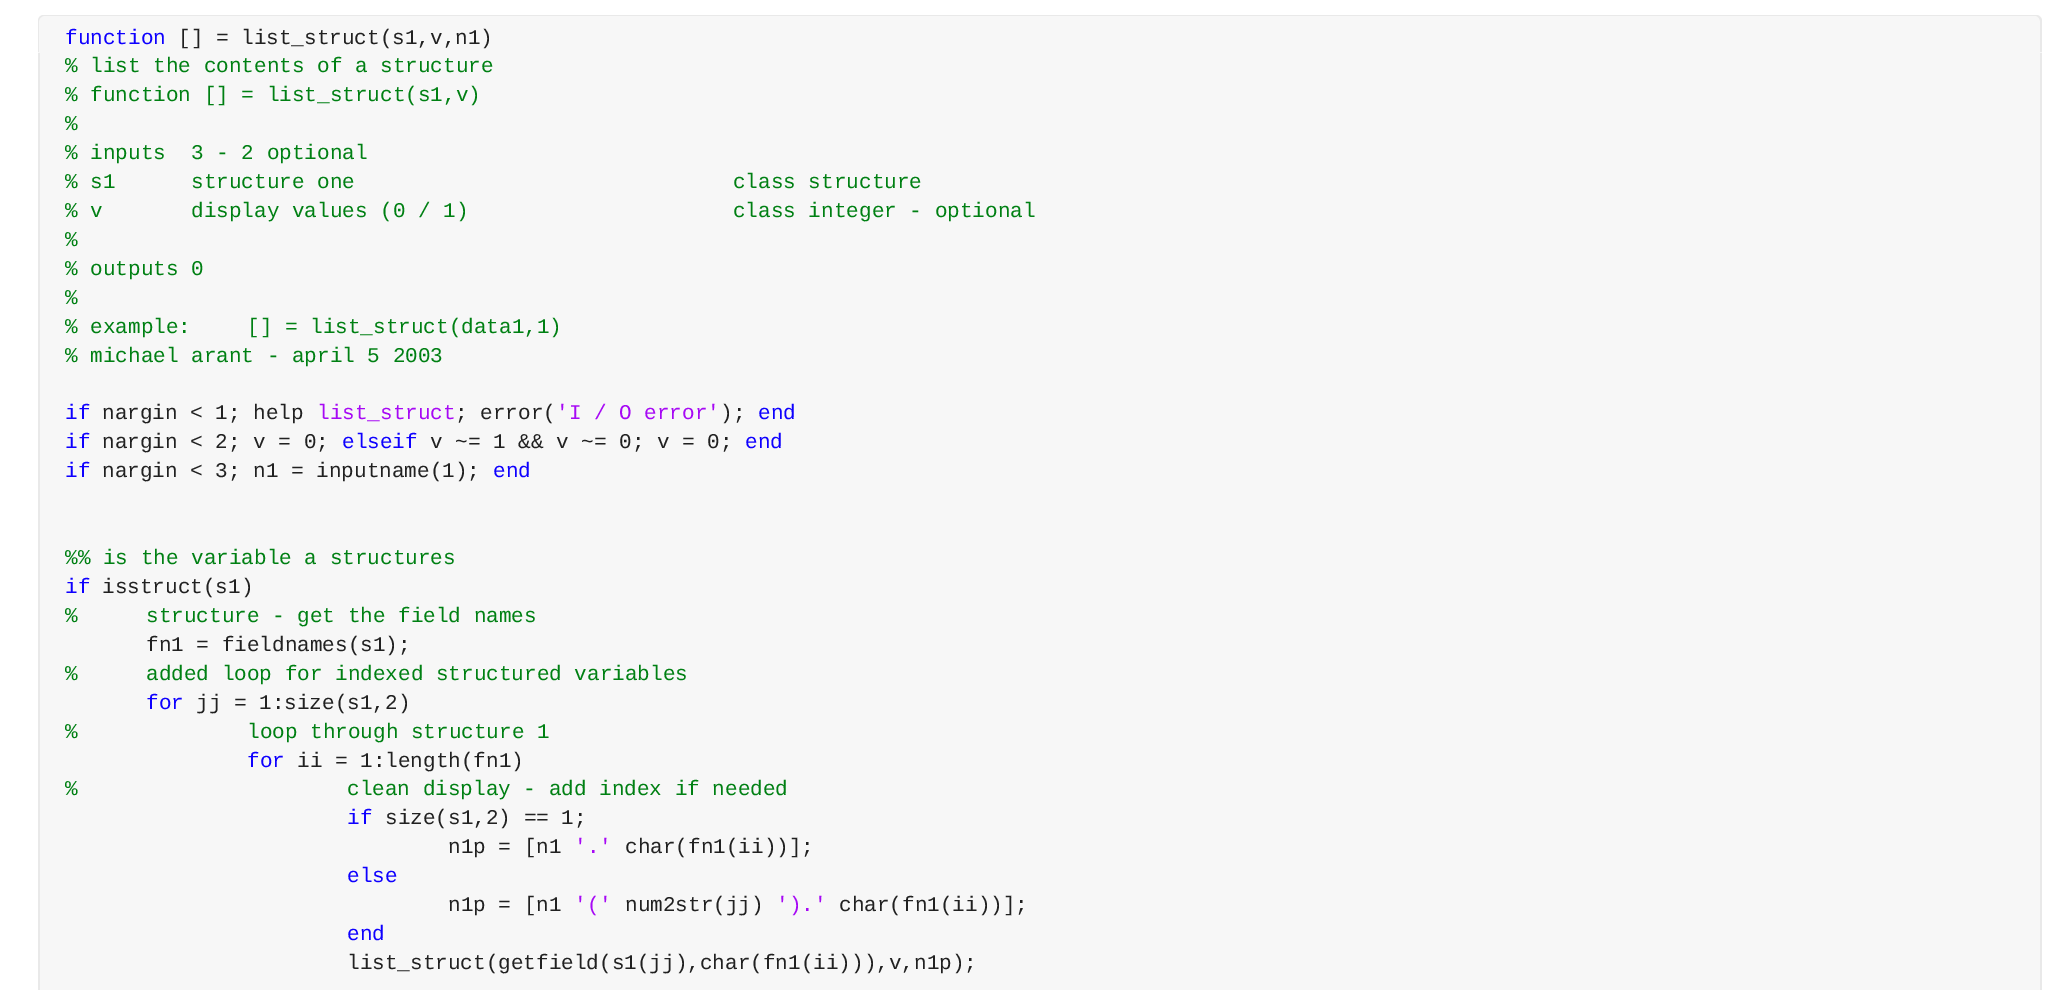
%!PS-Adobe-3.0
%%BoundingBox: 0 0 2060 990
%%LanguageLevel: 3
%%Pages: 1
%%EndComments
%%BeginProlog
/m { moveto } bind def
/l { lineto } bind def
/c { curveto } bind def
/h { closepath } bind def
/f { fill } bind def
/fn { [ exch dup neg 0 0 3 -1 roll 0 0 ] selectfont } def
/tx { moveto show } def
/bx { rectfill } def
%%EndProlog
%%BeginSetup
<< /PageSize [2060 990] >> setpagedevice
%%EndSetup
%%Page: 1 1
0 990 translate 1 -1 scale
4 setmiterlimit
1 setgray
0 0 2060 990 bx
0.969 setgray
44 15 m 2036 15 l 2039.5 15 2042 17.5 2042 21 c 2042 990 l 38 990 l 38 21 l 38 17.5 40.5 15 44 15 c h f
0.914 setgray
44 15 m 2036 15 l 2039 15 2042 18 2042 21 c 2042 52 l 38 52 l 38 21 l 38 18 40 15 44 15 c h 44 16 m 2036 16 l 2038 16 2040 19 2040 21 c 2040 52 l 39 52 l 39 21 l 39 19 41 16 44 16 c h eofill
/LiberationMono-Regular 21 fn
0.055 0 1 setrgbcolor
(function) 65 44 tx
0.129 setgray
([] = list_struct\(s1,v,n1\)) 178 44 tx
0.914 setgray
2040 53 2 937 bx
38 53 2 937 bx
0 0.502 0.075 setrgbcolor
(% list the contents of a structure) 65 72 tx
(% function [] = list_struct\(s1,v\)) 65 101 tx
(%) 65 130 tx
(% inputs  3 - 2 optional) 65 159 tx
(% s1      structure one                              class structure) 65 188 tx
(% v       display values \(0 / 1\)                     class integer - optional) 65 217 tx
(%) 65 246 tx
(% outputs 0) 65 275 tx
(%) 65 304 tx
(% example:) 65 333 tx
([] = list_struct\(data1,1\)) 247 333 tx
(% michael arant - april 5 2003) 65 362 tx
0.055 0 1 setrgbcolor
(if) 65 419 tx
0.129 setgray
(nargin < 1; help) 102 419 tx
0.655 0.035 0.961 setrgbcolor
(list_struct) 317 419 tx
0.129 setgray
(; error\() 455 419 tx
0.655 0.035 0.961 setrgbcolor
('I / O error') 556 419 tx
0.129 setgray
(\);) 720 419 tx
0.055 0 1 setrgbcolor
(end) 758 419 tx
(if) 65 448 tx
0.129 setgray
(nargin < 2; v = 0;) 102 448 tx
0.055 0 1 setrgbcolor
(elseif) 342 448 tx
0.129 setgray
(v ~= 1 && v ~= 0; v = 0;) 430 448 tx
0.055 0 1 setrgbcolor
(end) 745 448 tx
(if) 65 477 tx
0.129 setgray
(nargin < 3; n1 = inputname\(1\);) 102 477 tx
0.055 0 1 setrgbcolor
(end) 493 477 tx
0 0.502 0.075 setrgbcolor
(%% is the variable a structures) 65 564 tx
0.055 0 1 setrgbcolor
(if) 65 593 tx
0.129 setgray
(isstruct\(s1\)) 102 593 tx
0 0.502 0.075 setrgbcolor
(%) 65 622 tx
(structure - get the field names) 146 622 tx
0.129 setgray
(fn1 = fieldnames\(s1\);) 146 651 tx
0 0.502 0.075 setrgbcolor
(%) 65 680 tx
(added loop for indexed structured variables) 146 680 tx
0.055 0 1 setrgbcolor
(for) 146 709 tx
0.129 setgray
(jj = 1:size\(s1,2\)) 196 709 tx
0 0.502 0.075 setrgbcolor
(%) 65 738 tx
(loop through structure 1) 247 738 tx
0.055 0 1 setrgbcolor
(for) 247 767 tx
0.129 setgray
(ii = 1:length\(fn1\)) 297 767 tx
0 0.502 0.075 setrgbcolor
(%) 65 795 tx
(clean display - add index if needed) 347 795 tx
0.055 0 1 setrgbcolor
(if) 347 824 tx
0.129 setgray
(size\(s1,2\) == 1;) 385 824 tx
(n1p = [n1) 448 853 tx
0.655 0.035 0.961 setrgbcolor
('.') 574 853 tx
0.129 setgray
(char\(fn1\(ii\)\)];) 625 853 tx
0.055 0 1 setrgbcolor
(else) 347 882 tx
0.129 setgray
(n1p = [n1) 448 911 tx
0.655 0.035 0.961 setrgbcolor
('\(') 574 911 tx
0.129 setgray
(num2str\(jj\)) 625 911 tx
0.655 0.035 0.961 setrgbcolor
('\).') 776 911 tx
0.129 setgray
(char\(fn1\(ii\)\)];) 839 911 tx
0.055 0 1 setrgbcolor
(end) 347 940 tx
0.129 setgray
(list_struct\(getfield\(s1\(jj\),char\(fn1\(ii\)\)\),v,n1p\);) 347 969 tx
showpage
%%EOF
